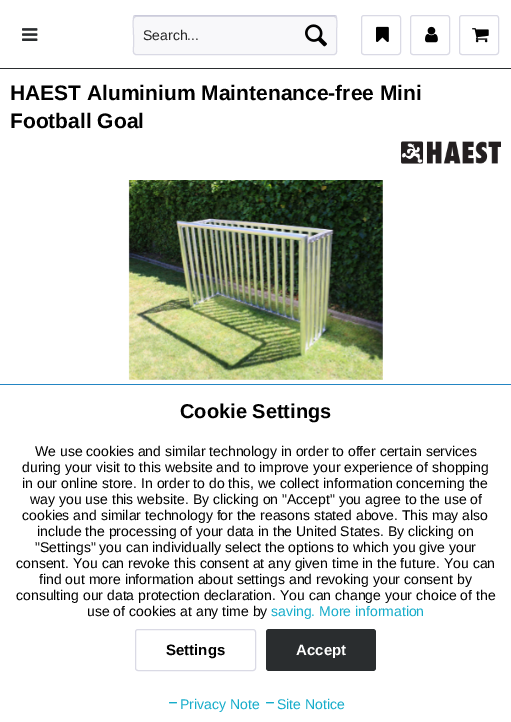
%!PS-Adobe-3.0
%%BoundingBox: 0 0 511 722
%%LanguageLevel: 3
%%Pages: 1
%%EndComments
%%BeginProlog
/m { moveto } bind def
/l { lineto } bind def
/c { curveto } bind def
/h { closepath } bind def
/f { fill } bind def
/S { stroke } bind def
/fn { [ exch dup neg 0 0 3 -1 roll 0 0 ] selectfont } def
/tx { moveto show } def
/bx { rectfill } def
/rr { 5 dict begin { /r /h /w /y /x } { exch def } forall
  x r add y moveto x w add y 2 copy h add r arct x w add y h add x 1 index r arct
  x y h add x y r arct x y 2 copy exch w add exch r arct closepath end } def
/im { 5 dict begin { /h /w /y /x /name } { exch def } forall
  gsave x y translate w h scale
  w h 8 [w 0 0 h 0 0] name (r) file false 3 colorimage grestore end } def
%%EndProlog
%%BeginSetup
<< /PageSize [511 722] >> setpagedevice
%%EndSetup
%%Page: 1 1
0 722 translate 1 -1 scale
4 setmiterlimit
1 setgray
0 0 511 722 bx
0.165 0.176 0.184 setrgbcolor
0 68 511 1 bx
(image0.raw) 22 28 16 13 im
0.973 0.973 0.98 setrgbcolor
134 16 202 38 2 rr f
0.855 0.855 0.898 setrgbcolor
136 17 m 334 17 l 336 18 l 336 19 l 336 18 336 16 334 16 c 136 16 l 134 16 134 18 134 19 c 134 18 135 17 136 17 c h f
0.796 0.796 0.859 setrgbcolor
134 16 m 136 15.5 l 334 15.5 l 336 16 l S
0.855 0.855 0.898 setrgbcolor
336 16 m 337.5 18 336.5 32 336.5 35 c 336.5 46.5 l 336.5 48 338 54.5 334 54.5 c 136 54.5 l 132 54.5 133.5 48 133.5 46.5 c 133.5 35 l 133.5 32 132.5 18 134 16 c S
/LiberationSans-Regular 14 fn
0.149 setgray
(Search...) 143 40 tx
(image1.raw) 305 24 22 23 im
0.855 0.855 0.898 setrgbcolor
361.5 15.5 39 39 2.5 rr S
(image2.raw) 376 26 13 16 im
410.5 15.5 39 39 2.5 rr S
(image3.raw) 425 26 13 17 im
459.5 15.5 39 39 2.5 rr S
(image4.raw) 472 28 17 15 im
/LiberationSans-Bold 21 fn
0 setgray
(HAEST Aluminium Maintenance-free Mini) 10 100 tx
(Football Goal) 10 128 tx
(image5.raw) 401 141 100 23 im
(image6.raw) 128 180 255 200 im
0.137 0.522 0.765 setrgbcolor
0 384 511 1 bx
/LiberationSans-Bold 20 fn
0 setgray
(Cookie Settings) 180 418 tx
/LiberationSans-Regular 14 fn
(We use cookies and similar technology in order to offer certain services) 35 456 tx
(during your visit to this website and to improve your experience of shopping) 22 472 tx
(in our online store. In order to do this, we collect information concerning the) 22 488 tx
(way you use this website. By clicking on "Accept" you agree to the use of) 30 504 tx
(cookies and similar technology for the reasons stated above. This may also) 22 520 tx
(include the processing of your data in the United States. By clicking on) 37 536 tx
("Settings" you can individually select the options to which you give your) 35 552 tx
(consent. You can revoke this consent at any given time in the future. You can) 16 568 tx
(find out more information about settings and revoking your consent by) 39 584 tx
(consulting our data protection declaration. You can change your choice of the) 16 600 tx
(use of cookies at any time by) 87 616 tx
0.082 0.675 0.792 setrgbcolor
(saving. More information) 271 616 tx
0.855 0.855 0.898 setrgbcolor
135.5 629.5 120 41 2.5 rr S
/LiberationSans-Bold 15 fn
0 setgray
(Settings) 166 655 tx
0.165 0.176 0.184 setrgbcolor
266 629 110 42 3 rr f
1 setgray
(Accept) 296 655 tx
(image7.raw) 169 702 8 2 im
/LiberationSans-Regular 14 fn
0.082 0.675 0.792 setrgbcolor
(Privacy Note) 180 709 tx
(image7.raw) 266 702 8 2 im
(Site Notice) 277 709 tx
showpage
%%EOF
